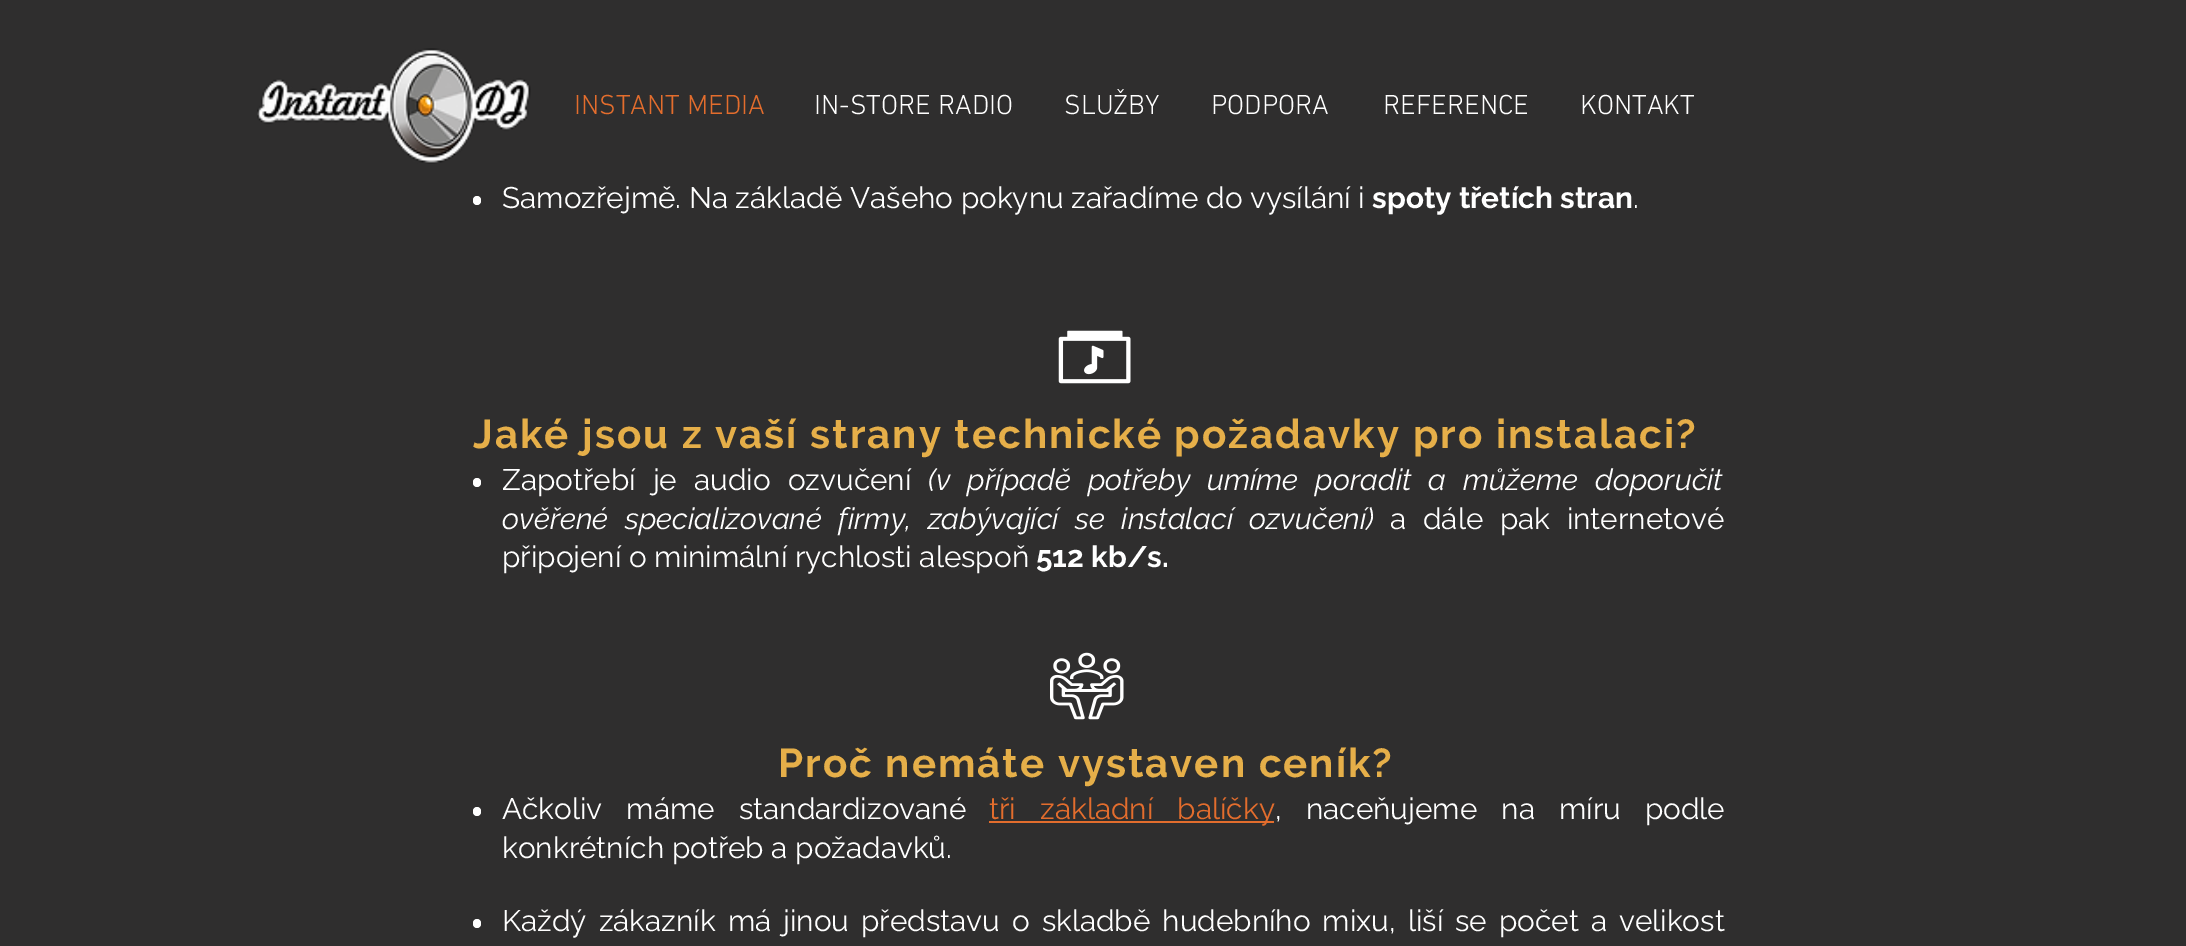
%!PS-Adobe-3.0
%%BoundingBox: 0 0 2186 946
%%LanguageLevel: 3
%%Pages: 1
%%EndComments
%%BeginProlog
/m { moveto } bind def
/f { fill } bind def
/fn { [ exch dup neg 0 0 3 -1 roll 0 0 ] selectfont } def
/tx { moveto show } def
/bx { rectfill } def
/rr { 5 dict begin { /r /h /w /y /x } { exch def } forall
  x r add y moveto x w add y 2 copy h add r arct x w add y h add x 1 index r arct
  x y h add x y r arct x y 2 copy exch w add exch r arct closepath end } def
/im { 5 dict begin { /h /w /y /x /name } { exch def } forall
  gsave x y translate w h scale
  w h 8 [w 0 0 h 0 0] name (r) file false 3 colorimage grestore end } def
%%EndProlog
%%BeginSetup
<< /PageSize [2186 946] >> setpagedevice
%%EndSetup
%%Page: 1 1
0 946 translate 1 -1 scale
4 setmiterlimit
0.184 0.18 0.18 setrgbcolor
0 0 2186 946 bx
(image0.raw) 257 48 274 116 im
/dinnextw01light-Light 28 fn
0.89 0.427 0.176 setrgbcolor
(INSTANT MEDIA) 574 114 tx
1 setgray
(IN-STORE RADIO) 814 114 tx
(SLUŽBY) 1064 114 tx
(PODPORA) 1211 114 tx
(REFERENCE) 1383 114 tx
(KONTAKT) 1580 114 tx
473 196 8 9 4 rr f
/Raleway-Regular 29.75 fn
(Samozřejmě. Na základě Vašeho pokynu zařadíme do vysílání i) 502 208 tx
/Raleway-Bold 29.75 fn
(spoty třetích stran) 1372 208 tx
/Raleway-Regular 29.75 fn
(.) 1633 208 tx
(image1.raw) 1058 330 73 54 im
/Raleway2-Bold 40.25 fn
0.902 0.686 0.286 setrgbcolor
473 448 m 2 0 (Jaké jsou z vaší strany technické požadavky pro instalaci?) ashow
1 setgray
473 478 8 9 4 rr f
/Raleway-Regular 29.75 fn
502 490 m 9.5 0 32 (Zapotřebí je audio ozvučení) widthshow
/Raleway-Italic 29.75 fn
928 490 m 9.5 0 32 (\(v případě potřeby umíme poradit a můžeme doporučit) widthshow
502 529 m 9 0 32 (ověřené specializované firmy, zabývající se instalací ozvučení\)) widthshow
/Raleway-Regular 29.75 fn
1390 529 m 9 0 32 (a dále pak internetové) widthshow
(připojení o minimální rychlosti alespoň) 502 567 tx
/Raleway-Bold 29.75 fn
(512 kb/s.) 1036 567 tx
(image2.raw) 1050 652 74 68 im
/Raleway2-Bold 40.25 fn
0.902 0.686 0.286 setrgbcolor
778 777 m 2 0 (Proč nemáte vystaven ceník?) ashow
1 setgray
473 807 8 9 4 rr f
/Raleway-Regular 29.75 fn
502 819 m 16.5 0 32 (Ačkoliv máme standardizované) widthshow
0.89 0.427 0.176 setrgbcolor
989 821 285 2 bx
989 819 m 16.5 0 32 (tři základní balíčky) widthshow
1 setgray
1275 819 m 16.5 0 32 (, naceňujeme na míru podle) widthshow
(konkrétních potřeb a požadavků.) 502 858 tx
473 919 8 9 4 rr f
502 931 m 4.4 0 32 (Každý zákazník má jinou představu o skladbě hudebního mixu, liší se počet a velikost) widthshow
showpage
%%EOF
